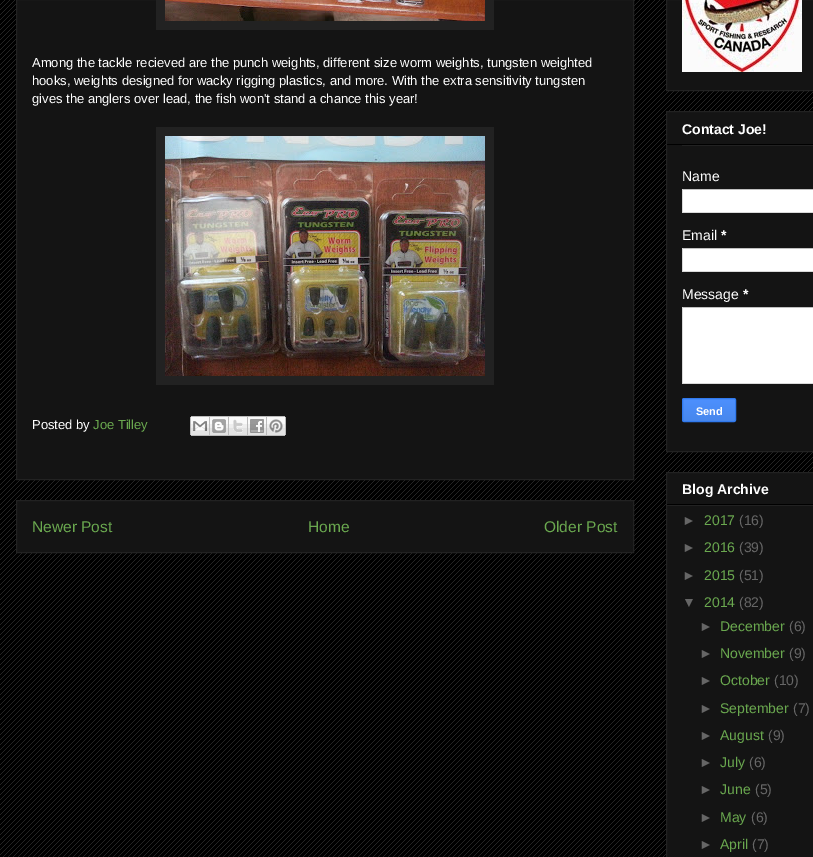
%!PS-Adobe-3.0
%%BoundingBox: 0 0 813 857
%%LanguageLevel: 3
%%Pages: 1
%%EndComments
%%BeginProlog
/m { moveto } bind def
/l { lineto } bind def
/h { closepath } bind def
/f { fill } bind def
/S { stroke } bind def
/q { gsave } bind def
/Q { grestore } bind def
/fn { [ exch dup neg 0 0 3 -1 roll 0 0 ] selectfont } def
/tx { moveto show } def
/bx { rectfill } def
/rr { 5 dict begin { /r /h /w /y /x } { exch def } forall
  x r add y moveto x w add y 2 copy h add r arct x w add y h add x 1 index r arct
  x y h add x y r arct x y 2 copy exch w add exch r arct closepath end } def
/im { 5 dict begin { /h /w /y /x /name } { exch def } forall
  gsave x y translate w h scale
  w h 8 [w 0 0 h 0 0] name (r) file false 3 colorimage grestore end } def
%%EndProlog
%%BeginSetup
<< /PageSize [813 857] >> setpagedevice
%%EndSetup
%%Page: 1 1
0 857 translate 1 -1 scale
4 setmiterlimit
0 setgray
0 0 813 857 bx
(image0.raw) 0 0 813 857 im
0.078 setgray
16.5 -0.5 m 633.5 -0.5 l 633.5 479.5 l 16.5 479.5 l h q f Q
0.133 setgray
S
156 0 338 30 bx
(image1.raw) 165 0 320 21 im
/LiberationSans-Regular 13 fn
1 setgray
(Among the tackle recieved are the punch weights, different size worm weights, tungsten weighted) 32 67 tx
(hooks, weights designed for wacky rigging plastics, and more. With the extra sensitivity tungsten) 32 85 tx
(gives the anglers over lead, the fish won't stand a chance this year!) 32 103 tx
0.133 setgray
156 127 338 258 bx
(image2.raw) 165 136 320 240 im
1 setgray
(Posted by) 32 429 tx
0.416 0.659 0.31 setrgbcolor
(Joe Tilley) 93 429 tx
(image3.raw) 190 416 20 20 im
(image4.raw) 210 416 19 20 im
(image5.raw) 229 416 19 20 im
(image6.raw) 248 416 19 20 im
(image7.raw) 267 416 19 20 im
0.078 setgray
16.5 500.5 m 633.5 500.5 l 633.5 552.5 l 16.5 552.5 l h q f Q
0.133 setgray
S
/LiberationSans-Regular 15.5 fn
0.416 0.659 0.31 setrgbcolor
(Newer Post) 32 532 tx
(Home) 308 532 tx
(Older Post) 544 532 tx
0.078 setgray
666.5 -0.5 m 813.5 -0.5 l 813.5 90.5 l 666.5 90.5 l h q f Q
0.133 setgray
S
(image8.raw) 682 0 120 72 im
0.078 setgray
666.5 111.5 m 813.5 111.5 l 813.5 451.5 l 666.5 451.5 l h q f Q
0.133 setgray
S
0 setgray
667 144 146 1 bx
/LiberationSans-Bold 14 fn
1 setgray
(Contact Joe!) 682 134 tx
0.133 setgray
682 145 131 1 bx
/LiberationSans-Regular 14 fn
1 setgray
(Name) 682 181 tx
683 190 130 22 bx
0.753 setgray
682 189 131 1 bx
0.851 setgray
682 212 131 1 bx
682 189 1 24 bx
1 setgray
(Email) 682 240 tx
/LiberationSans-Bold 14 fn
(*) 721 240 tx
683 249 130 22 bx
0.753 setgray
682 248 131 1 bx
0.851 setgray
682 271 131 1 bx
682 248 1 24 bx
/LiberationSans-Regular 14 fn
1 setgray
(Message) 682 299 tx
/LiberationSans-Bold 14 fn
(*) 743 299 tx
683 308 130 75 bx
0.753 setgray
682 307 131 1 bx
0.851 setgray
682 383 131 1 bx
682 307 1 77 bx
q
682 398 54 24 2 rr clip newpath
q 682 399 m 736 399 l 736 421 l 682 421 l h clip newpath
<< /ShadingType 2 /ColorSpace /DeviceRGB /Coords [709 399 709 421] /Extend [true true] /Function << /FunctionType 2 /Domain [0 1] /C0 [0.302 0.565 0.996] /C1 [0.278 0.529 0.929] /N 1 >> >> shfill Q
Q
0.188 0.475 0.929 setrgbcolor
682.5 398.5 53 23 1.5 rr S
/LiberationSans-Bold 11 fn
1 setgray
(Send) 696 415 tx
0.078 setgray
666.5 472.5 m 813.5 472.5 l 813.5 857.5 l 666.5 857.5 l h q f Q
0.133 setgray
S
0 setgray
667 504 146 1 bx
/LiberationSans-Bold 14 fn
1 setgray
(Blog Archive) 682 494 tx
0.133 setgray
667 505 146 1 bx
/LiberationSans-Regular 14 fn
0.4 setgray
(►) 682 525 tx
0.416 0.659 0.31 setrgbcolor
(2017) 704 525 tx
0.4 setgray
(\(16\)) 739 525 tx
(►) 682 552 tx
0.416 0.659 0.31 setrgbcolor
(2016) 704 552 tx
0.4 setgray
(\(39\)) 739 552 tx
(►) 682 580 tx
0.416 0.659 0.31 setrgbcolor
(2015) 704 580 tx
0.4 setgray
(\(51\)) 739 580 tx
(▼) 682 607 tx
0.416 0.659 0.31 setrgbcolor
(2014) 704 607 tx
0.4 setgray
(\(82\)) 739 607 tx
(►) 699 631 tx
0.416 0.659 0.31 setrgbcolor
(December) 720 631 tx
0.4 setgray
(\(6\)) 789 631 tx
(►) 699 658 tx
0.416 0.659 0.31 setrgbcolor
(November) 720 658 tx
0.4 setgray
(\(9\)) 789 658 tx
(►) 699 685 tx
0.416 0.659 0.31 setrgbcolor
(October) 720 685 tx
0.4 setgray
(\(10\)) 774 685 tx
(►) 699 713 tx
0.416 0.659 0.31 setrgbcolor
(September) 720 713 tx
0.4 setgray
(\(7\)) 793 713 tx
(►) 699 740 tx
0.416 0.659 0.31 setrgbcolor
(August) 720 740 tx
0.4 setgray
(\(9\)) 768 740 tx
(►) 699 767 tx
0.416 0.659 0.31 setrgbcolor
(July) 720 767 tx
0.4 setgray
(\(6\)) 749 767 tx
(►) 699 794 tx
0.416 0.659 0.31 setrgbcolor
(June) 720 794 tx
0.4 setgray
(\(5\)) 755 794 tx
(►) 699 822 tx
0.416 0.659 0.31 setrgbcolor
(May) 720 822 tx
0.4 setgray
(\(6\)) 751 822 tx
(►) 699 849 tx
0.416 0.659 0.31 setrgbcolor
(April) 720 849 tx
0.4 setgray
(\(7\)) 752 849 tx
showpage
%%EOF
